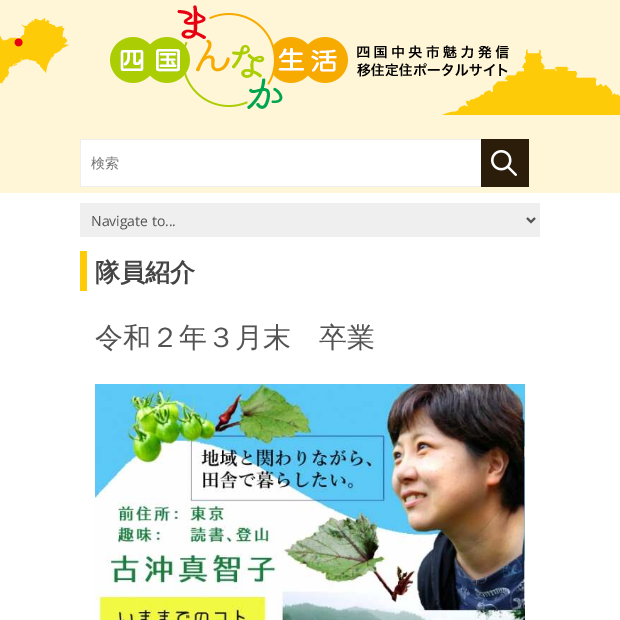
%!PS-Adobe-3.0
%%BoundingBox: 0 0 620 620
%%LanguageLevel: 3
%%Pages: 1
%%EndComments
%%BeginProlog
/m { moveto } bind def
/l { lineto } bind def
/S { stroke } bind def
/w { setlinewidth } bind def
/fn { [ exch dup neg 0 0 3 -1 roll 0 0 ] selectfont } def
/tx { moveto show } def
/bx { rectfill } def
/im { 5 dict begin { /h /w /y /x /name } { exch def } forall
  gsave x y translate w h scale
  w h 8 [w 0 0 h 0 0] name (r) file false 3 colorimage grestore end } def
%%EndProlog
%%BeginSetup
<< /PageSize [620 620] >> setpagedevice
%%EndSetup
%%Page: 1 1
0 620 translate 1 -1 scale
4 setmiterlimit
1 setgray
0 0 620 620 bx
1 0.961 0.843 setrgbcolor
0 0 620 193 bx
(image0.raw) 0 18 620 97 im
(image1.raw) 110 5 399 104 im
1 setgray
81 140 400 46 bx
0.933 setgray
80 139 401 1 bx
80 186 401 1 bx
80 139 1 48 bx
/WenQuanYiZenHei-Medium 14 fn
0.459 setgray
(検索) 91 168 tx
(image2.raw) 481 139 48 48 im
0.937 setgray
80 203 460 34 bx
0.333 setgray
2 w
527 218 m 531 222 l 535 218 l S
/OpenSans-Regular 14 fn
0.325 setgray
(Navigate to...) 91 226 tx
0.992 0.796 0.031 setrgbcolor
80 251 7 40 bx
/WenQuanYiZenHei-Bold 25 fn
0.267 setgray
(隊員紹介) 95 281 tx
/WenQuanYiZenHei-Medium 28 fn
0.325 setgray
(令和２年３月末　卒業) 95 347 tx
(image3.raw) 95 384 430 236 im
showpage
%%EOF
